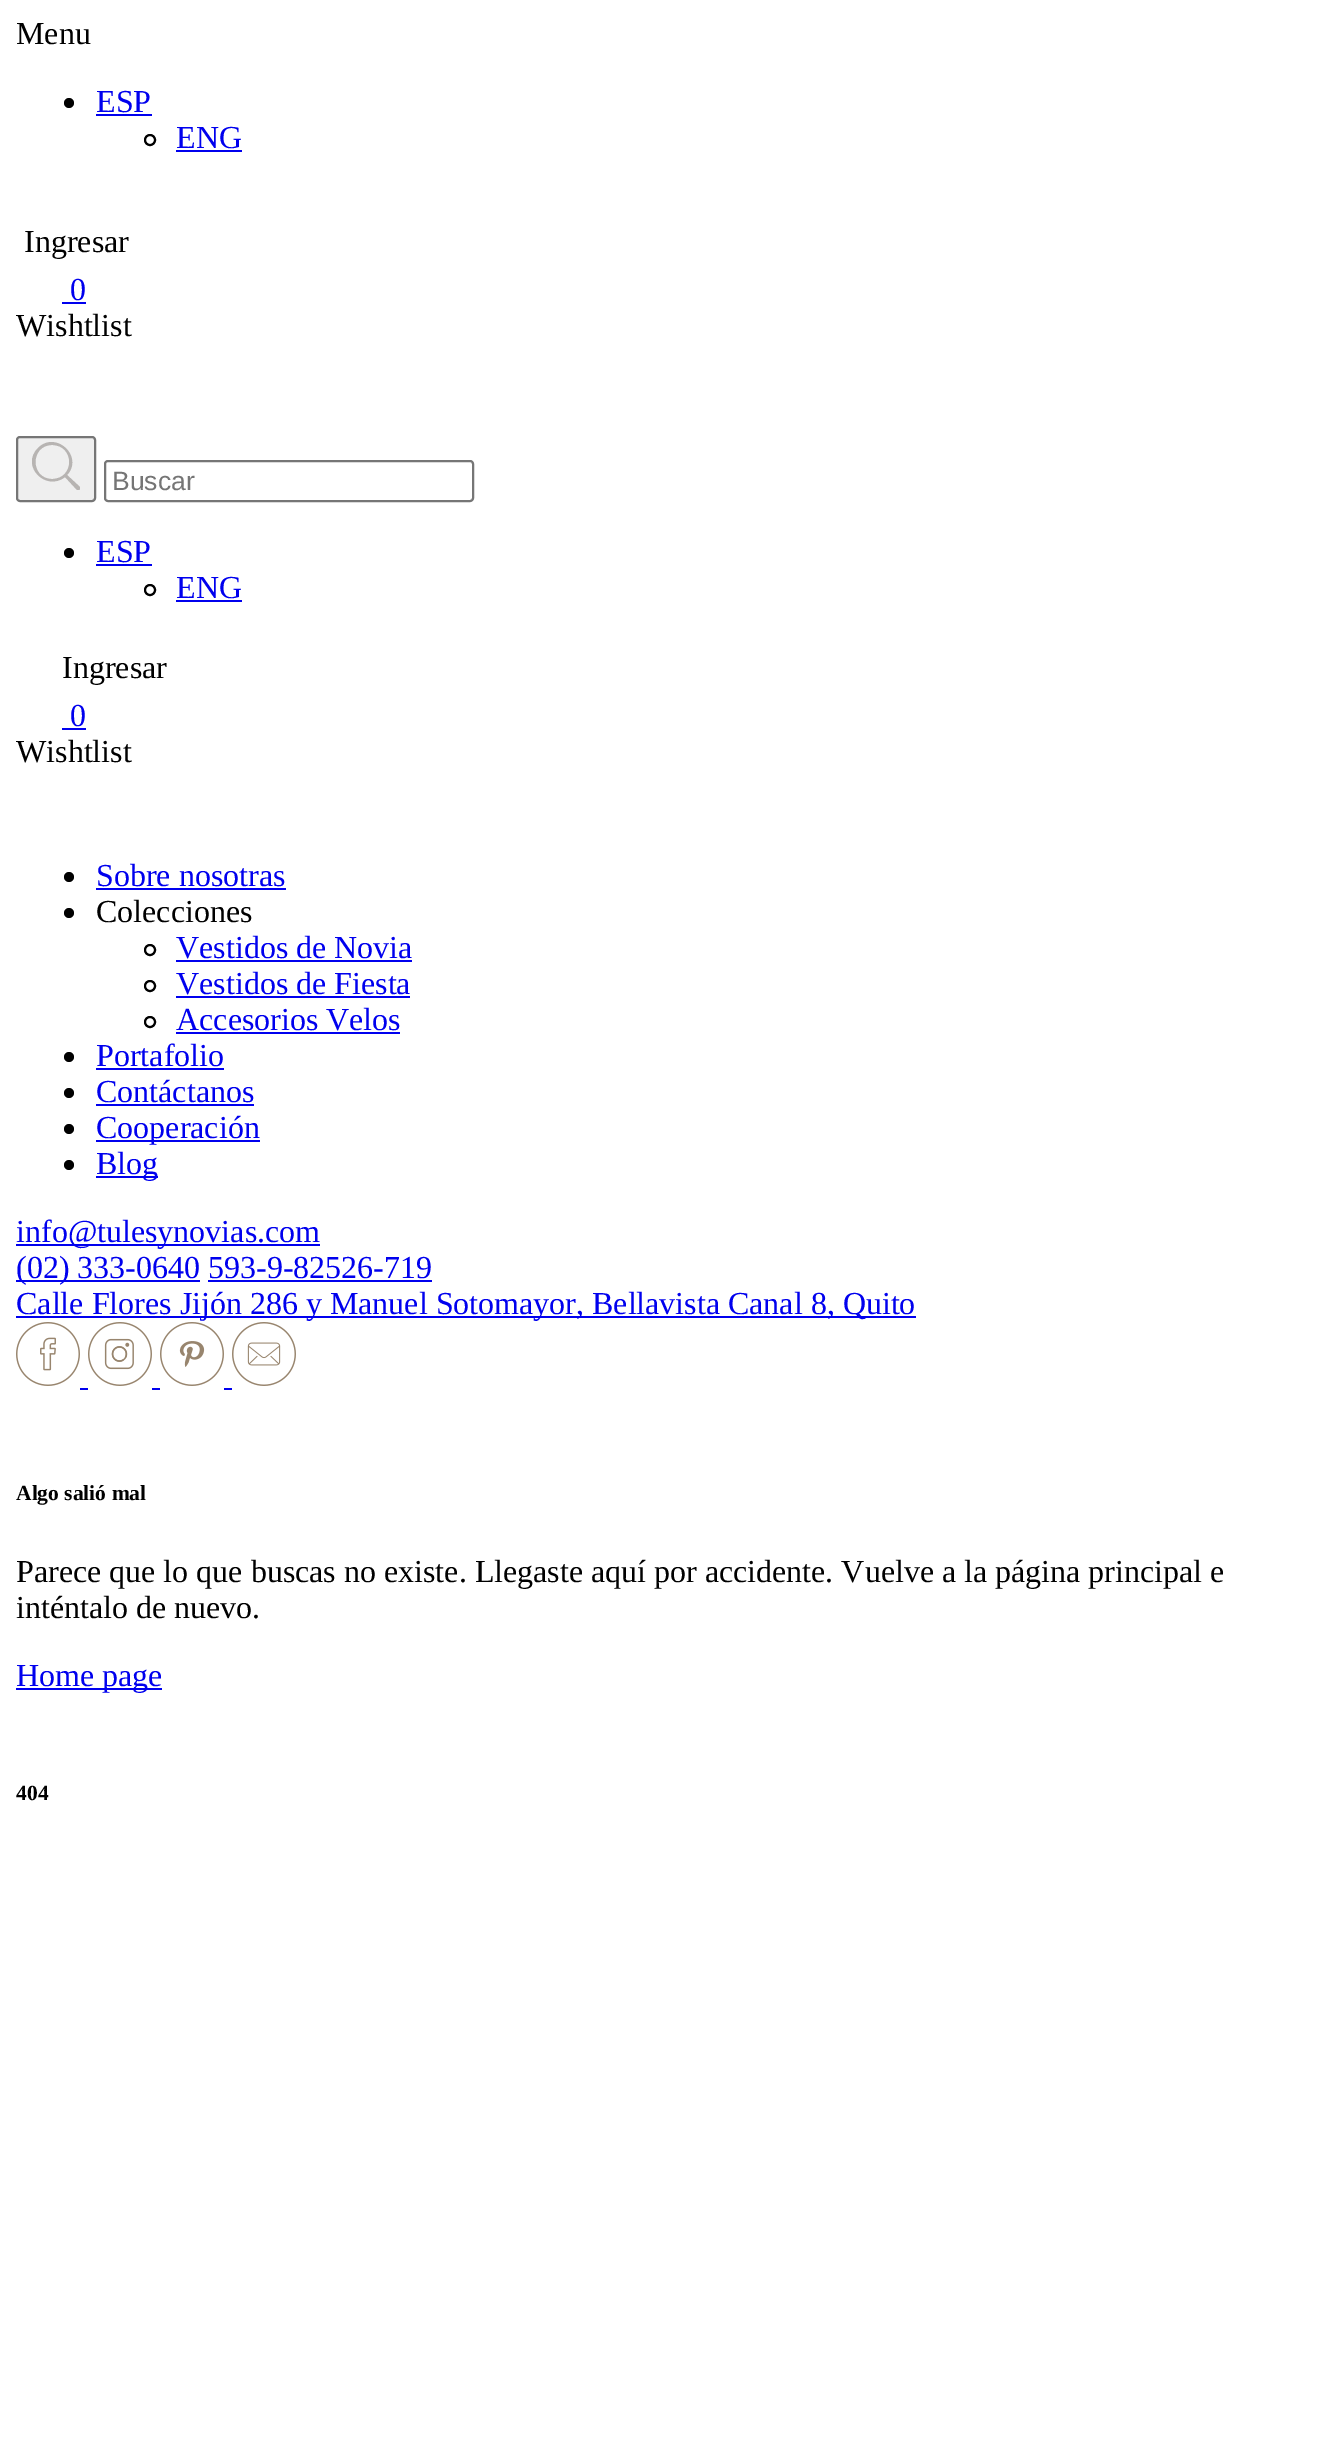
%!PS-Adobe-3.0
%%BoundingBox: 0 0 1318 2447
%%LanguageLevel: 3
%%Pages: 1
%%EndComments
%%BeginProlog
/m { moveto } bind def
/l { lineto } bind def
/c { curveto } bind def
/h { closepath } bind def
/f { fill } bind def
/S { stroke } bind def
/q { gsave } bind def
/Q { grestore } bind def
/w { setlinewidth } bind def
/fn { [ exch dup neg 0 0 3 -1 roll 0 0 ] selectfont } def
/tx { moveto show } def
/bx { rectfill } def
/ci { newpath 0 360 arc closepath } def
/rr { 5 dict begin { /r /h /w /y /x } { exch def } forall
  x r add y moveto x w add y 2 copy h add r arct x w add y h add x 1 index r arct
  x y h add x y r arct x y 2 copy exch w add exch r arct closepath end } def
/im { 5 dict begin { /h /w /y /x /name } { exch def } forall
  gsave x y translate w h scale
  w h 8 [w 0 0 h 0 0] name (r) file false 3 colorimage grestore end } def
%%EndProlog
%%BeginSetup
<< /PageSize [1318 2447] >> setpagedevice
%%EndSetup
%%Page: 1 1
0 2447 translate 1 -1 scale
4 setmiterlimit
1 setgray
0 0 1318 2447 bx
/LiberationSerif-Regular 32 fn
0 setgray
(Menu) 16 44 tx
69 103 5 ci f
0 0 0.933 setrgbcolor
(ESP) 96 112 tx
96 114 56 2 bx
0 setgray
2 w
150 140 5 ci S
0 0 0.933 setrgbcolor
(ENG) 176 148 tx
176 150 66 2 bx
0 setgray
(Ingresar) 24 252 tx
0 0 0.933 setrgbcolor
(0) 70 300 tx
62 302 24 2 bx
0 setgray
(Wishtlist) 16 336 tx
0.937 setgray
17 437 78 64 3 rr q f Q
0.463 setgray
S
q
32 442 48 48 rectclip
0.718 0.706 0.698 setrgbcolor
80 487 m 67 475 l 84 457 56 430 38 448 c 20 466 46 492 65 477 c 77 490 l 79 491 81 489 80 487 c h 52 479 m 30 479 30 445 52 445 c 75 445 75 479 52 479 c h f
Q
105 461 368 40 3 rr S
/LiberationSans-Regular 26.5 fn
0.459 setgray
(Buscar) 112 490 tx
0 setgray
69 553 5 ci f
/LiberationSerif-Regular 32 fn
0 0 0.933 setrgbcolor
(ESP) 96 562 tx
96 564 56 2 bx
0 setgray
150 590 5 ci S
0 0 0.933 setrgbcolor
(ENG) 176 598 tx
176 600 66 2 bx
0 setgray
(Ingresar) 62 678 tx
0 0 0.933 setrgbcolor
(0) 70 726 tx
62 728 24 2 bx
0 setgray
(Wishtlist) 16 762 tx
69 877 5 ci f
0 0 0.933 setrgbcolor
(Sobre nosotras) 96 886 tx
96 888 190 2 bx
0 setgray
69 913 5 ci f
(Colecciones) 96 922 tx
150 950 5 ci S
0 0 0.933 setrgbcolor
(Vestidos de Novia) 176 958 tx
176 960 236 2 bx
0 setgray
150 986 5 ci S
0 0 0.933 setrgbcolor
(Vestidos de Fiesta) 176 994 tx
176 996 234 2 bx
0 setgray
150 1022 5 ci S
0 0 0.933 setrgbcolor
(Accesorios Velos) 176 1030 tx
176 1032 224 2 bx
0 setgray
69 1057 5 ci f
0 0 0.933 setrgbcolor
(Portafolio) 96 1066 tx
96 1068 128 2 bx
0 setgray
69 1093 5 ci f
0 0 0.933 setrgbcolor
(Contáctanos) 96 1102 tx
96 1104 158 2 bx
0 setgray
69 1129 5 ci f
0 0 0.933 setrgbcolor
96 1140 164 2 bx
(Cooperación) 96 1138 tx
0 setgray
69 1165 5 ci f
0 0 0.933 setrgbcolor
96 1176 62 2 bx
(Blog) 96 1174 tx
16 1244 304 2 bx
(info@tulesynovias.com) 16 1242 tx
16 1280 184 2 bx
(\(02\) 333-0640 593-9-82526-719) 16 1278 tx
208 1280 224 2 bx
16 1316 900 2 bx
(Calle Flores Jijón 286 y Manuel Sotomayor, Bellavista Canal 8, Quito) 16 1314 tx
(image0.raw) 16 1322 64 64 im
(image1.raw) 88 1322 64 64 im
(image2.raw) 160 1322 64 64 im
(image3.raw) 232 1322 64 64 im
80 1388 8 2 bx
152 1388 8 2 bx
224 1388 8 2 bx
/LiberationSerif-Bold 21.5 fn
0 setgray
(Algo salió mal) 16 1500 tx
/LiberationSerif-Regular 32 fn
(Parece que lo que buscas no existe. Llegaste aquí por accidente. Vuelve a la página principal e) 16 1582 tx
(inténtalo de nuevo.) 16 1618 tx
0 0 0.933 setrgbcolor
16 1688 146 2 bx
(Home page) 16 1686 tx
/LiberationSerif-Bold 21.5 fn
0 setgray
(404) 16 1800 tx
showpage
%%EOF
